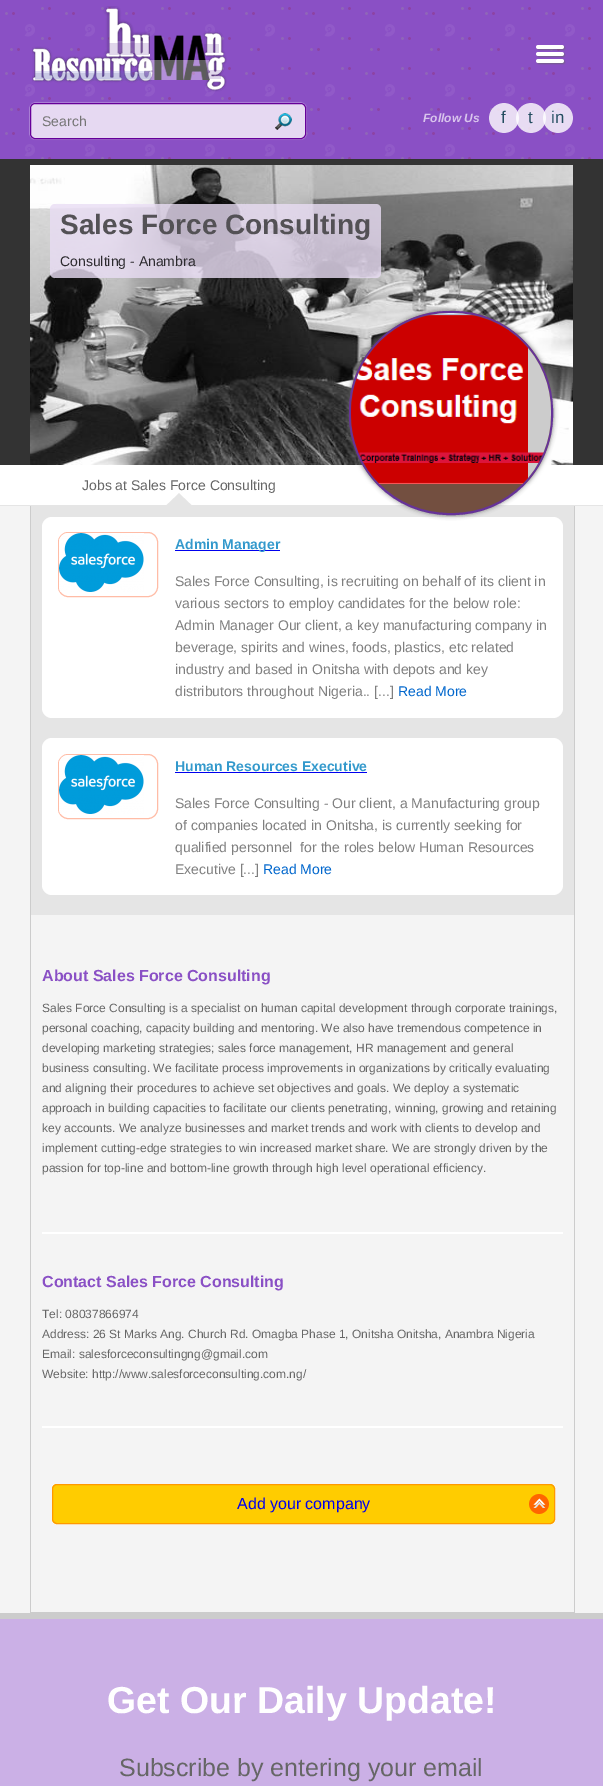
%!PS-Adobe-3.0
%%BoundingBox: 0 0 603 1786
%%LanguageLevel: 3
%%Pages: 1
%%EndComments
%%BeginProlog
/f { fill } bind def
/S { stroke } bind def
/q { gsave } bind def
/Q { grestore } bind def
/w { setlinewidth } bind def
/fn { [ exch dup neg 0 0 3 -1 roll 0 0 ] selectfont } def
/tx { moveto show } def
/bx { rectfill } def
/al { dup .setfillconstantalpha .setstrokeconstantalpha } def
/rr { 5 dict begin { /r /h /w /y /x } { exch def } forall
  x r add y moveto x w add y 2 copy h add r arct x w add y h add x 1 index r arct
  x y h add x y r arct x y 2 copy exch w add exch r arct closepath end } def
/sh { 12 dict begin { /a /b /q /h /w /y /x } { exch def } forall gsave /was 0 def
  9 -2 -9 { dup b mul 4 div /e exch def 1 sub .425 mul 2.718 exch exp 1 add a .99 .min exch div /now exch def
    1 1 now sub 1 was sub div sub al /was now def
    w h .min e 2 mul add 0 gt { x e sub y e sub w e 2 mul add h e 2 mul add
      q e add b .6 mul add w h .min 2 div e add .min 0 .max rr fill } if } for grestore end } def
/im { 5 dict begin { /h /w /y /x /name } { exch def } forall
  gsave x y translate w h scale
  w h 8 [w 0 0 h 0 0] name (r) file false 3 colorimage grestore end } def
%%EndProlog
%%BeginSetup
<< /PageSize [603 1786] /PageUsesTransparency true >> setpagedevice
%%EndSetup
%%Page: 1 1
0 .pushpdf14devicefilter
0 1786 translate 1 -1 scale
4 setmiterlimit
1 setgray
0 0 603 1786 bx
0.541 0.314 0.773 setrgbcolor
0 0 603 159 bx
(image0.raw) 5 7 586 152 im
(image1.raw) 32 6 195 86 im
(image2.raw) 536 45 30 20 im
1 setgray
30 103 276 36 5 0.5 1 sh
0.902 0.851 0.949 setrgbcolor
30.5 103.5 275 35 4.5 rr q f Q
0.4 0 0.6 setrgbcolor
S
/LiberationSans-Regular 14 fn
0.459 setgray
(Search) 42 126 tx
(image3.raw) 275 113 17 17 im
/LiberationSans-BoldItalic 12 fn
0.847 0.769 0.925 setrgbcolor
(Follow Us) 423 122 tx
(image4.raw) 489 103 30 30 im
/LiberationSans-Regular 17 fn
0.141 0.302 0.376 setrgbcolor
(f) 501 123 tx
(image5.raw) 516 103 30 30 im
(t) 528 123 tx
(image6.raw) 543 103 30 30 im
(in) 551 123 tx
0.2 setgray
0 159 603 306 bx
(image7.raw) 30 165 543 300 im
0.8 al
0.914 0.867 0.957 setrgbcolor
50 204 331 74 5 rr f
/LiberationSans-Bold 28 fn
1 al
0.325 0.318 0.333 setrgbcolor
(Sales Force Consulting) 60 234 tx
/LiberationSans-Regular 14 fn
0.173 0.165 0.18 setrgbcolor
(Consulting - Anambra) 60 266 tx
0.898 setgray
0 505 603 1 bx
0.957 setgray
0 506 603 1107 bx
0.898 setgray
31 506 543 409 bx
1 setgray
42 517 521 201 10 rr f
0.4 setgray
349 311 204 204 100 2.5 1 sh
0.451 0.31 0.251 setrgbcolor
350 312 202 202 99 rr q f Q
0.4 0.2 0.6 setrgbcolor
2 w
S
(image8.raw) 351 313 200 171 im
(image9.raw) 166 493 26 12 im
0.4 setgray
(Jobs at Sales Force Consulting) 82 490 tx
0.8 setgray
574 506 1 1107 bx
30 1612 545 1 bx
30 506 1 1107 bx
1 0.737 0.651 setrgbcolor
1 w
58.5 532.5 99 64 9.5 rr S
(image10.raw) 59 533 85 59 im
0 0 0.933 setrgbcolor
175 550 105 1 bx
/LiberationSans-Bold 14 fn
0.2 0.6 0.8 setrgbcolor
(Admin Manager) 175 549 tx
/LiberationSans-Regular 14 fn
0.498 setgray
(Sales Force Consulting, is recruiting on behalf of its client in) 175 586 tx
(various sectors to employ candidates for the below role:) 175 608 tx
(Admin Manager Our client, a key manufacturing company in) 175 630 tx
(beverage, spirits and wines, foods, plastics, etc related) 175 652 tx
(industry and based in Onitsha with depots and key) 175 674 tx
(distributors throughout Nigeria.. [...]) 175 696 tx
0 0.4 0.8 setrgbcolor
(Read More) 398 696 tx
1 setgray
42 738 521 157 10 rr f
1 0.737 0.651 setrgbcolor
58.5 754.5 99 64 9.5 rr S
(image11.raw) 59 755 85 59 im
/LiberationSans-Bold 14 fn
0.2 0.6 0.8 setrgbcolor
(Human Resources Executive) 175 771 tx
0 0 0.933 setrgbcolor
175 772 192 1 bx
/LiberationSans-Regular 14 fn
0.498 setgray
(Sales Force Consulting - Our client, a Manufacturing group) 175 808 tx
(of companies located in Onitsha, is currently seeking for) 175 830 tx
(qualified personnel  for the roles below Human Resources) 175 852 tx
(Executive [...]) 175 874 tx
0 0.4 0.8 setrgbcolor
(Read More) 263 874 tx
1 setgray
42 1232 521 2 bx
/LiberationSans-Bold 16 fn
0.541 0.314 0.773 setrgbcolor
(About Sales Force Consulting) 42 981 tx
/LiberationSans-Regular 12 fn
0.4 setgray
(Sales Force Consulting is a specialist on human capital development through corporate trainings,) 42 1012 tx
(personal coaching, capacity building and mentoring. We also have tremendous competence in) 42 1032 tx
(developing marketing strategies; sales force management, HR management and general) 42 1052 tx
(business consulting. We facilitate process improvements in organizations by critically evaluating) 42 1072 tx
(and aligning their procedures to achieve set objectives and goals. We deploy a systematic) 42 1092 tx
(approach in building capacities to facilitate our clients penetrating, winning, growing and retaining) 42 1112 tx
(key accounts. We analyze businesses and market trends and work with clients to develop and) 42 1132 tx
(implement cutting-edge strategies to win increased market share. We are strongly driven by the) 42 1152 tx
(passion for top-line and bottom-line growth through high level operational efficiency.) 42 1172 tx
1 setgray
42 1426 521 2 bx
/LiberationSans-Bold 16 fn
0.541 0.314 0.773 setrgbcolor
(Contact Sales Force Consulting) 42 1287 tx
/LiberationSans-Regular 12 fn
0.4 setgray
(Tel: 08037866974) 42 1318 tx
(Address: 26 St Marks Ang. Church Rd. Omagba Phase 1, Onitsha Onitsha, Anambra Nigeria) 42 1338 tx
(Email: salesforceconsultingng@gmail.com) 42 1358 tx
(Website: http://www.salesforceconsulting.com.ng/) 42 1378 tx
1 0.8 0 setrgbcolor
52 1484 503 40 5 rr f
(image12.raw) 529 1494 20 20 im
1 0.6 0 setrgbcolor
52.5 1484.5 502 39 4.5 rr S
/LiberationSans-Regular 16 fn
0 0 0.933 setrgbcolor
(Add your company) 237 1509 tx
0.796 0.69 0.902 setrgbcolor
0 1619 603 167 bx
0.8 setgray
0 1613 603 6 bx
/LiberationSans-Bold 37.5 fn
1 setgray
(Get Our Daily Update!) 107 1713 tx
/LiberationSans-Regular 25 fn
0.4 setgray
(Subscribe by entering your email) 119 1776 tx
.poppdf14devicefilter showpage
%%EOF
